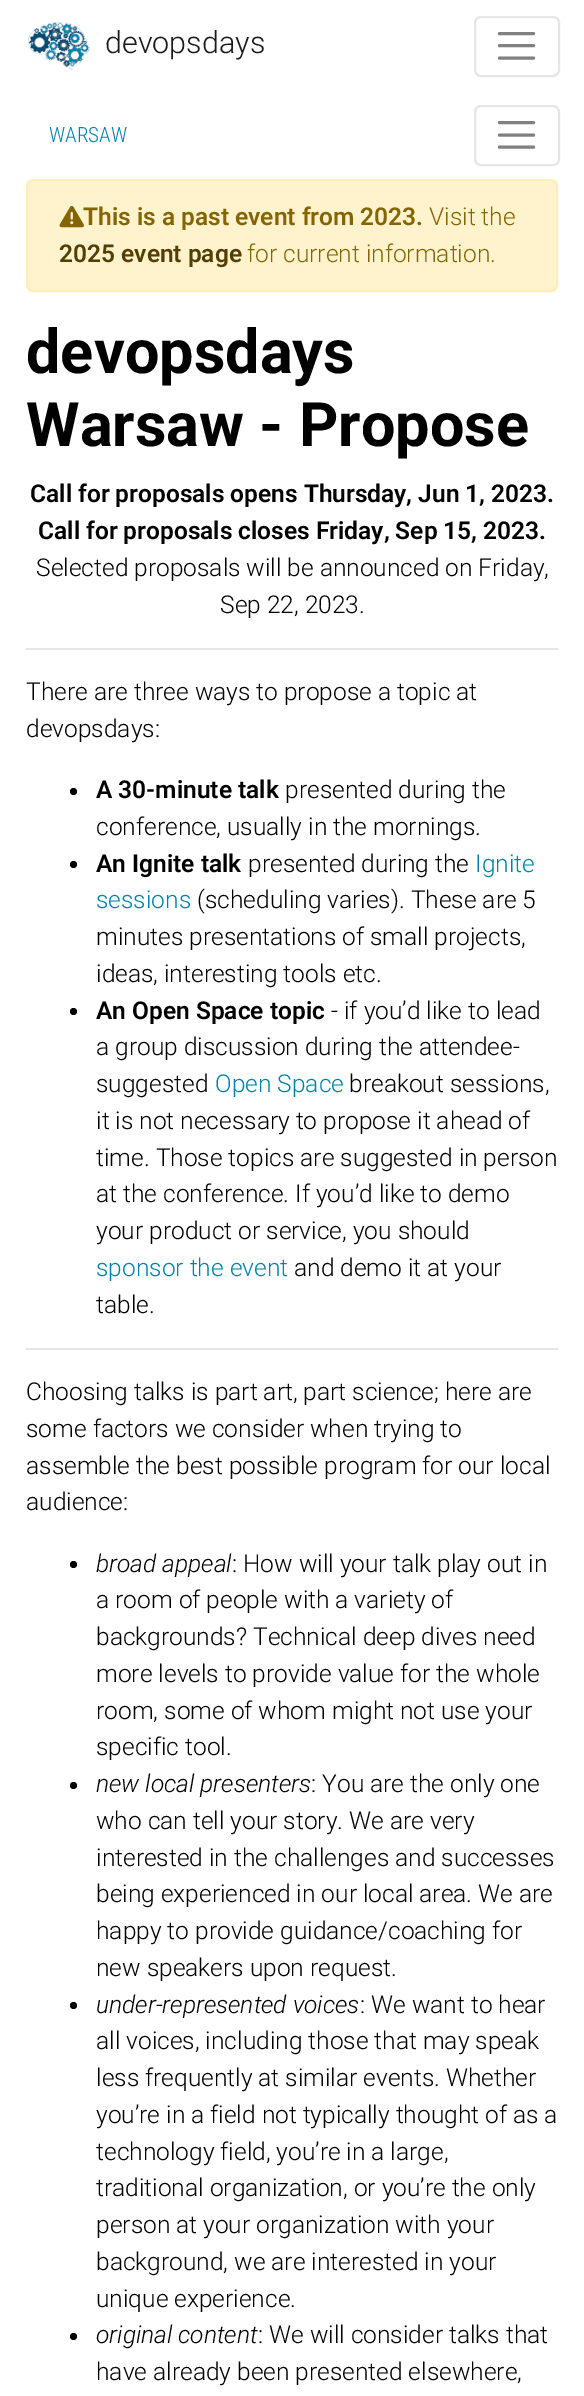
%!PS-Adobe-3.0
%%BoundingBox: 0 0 584 2396
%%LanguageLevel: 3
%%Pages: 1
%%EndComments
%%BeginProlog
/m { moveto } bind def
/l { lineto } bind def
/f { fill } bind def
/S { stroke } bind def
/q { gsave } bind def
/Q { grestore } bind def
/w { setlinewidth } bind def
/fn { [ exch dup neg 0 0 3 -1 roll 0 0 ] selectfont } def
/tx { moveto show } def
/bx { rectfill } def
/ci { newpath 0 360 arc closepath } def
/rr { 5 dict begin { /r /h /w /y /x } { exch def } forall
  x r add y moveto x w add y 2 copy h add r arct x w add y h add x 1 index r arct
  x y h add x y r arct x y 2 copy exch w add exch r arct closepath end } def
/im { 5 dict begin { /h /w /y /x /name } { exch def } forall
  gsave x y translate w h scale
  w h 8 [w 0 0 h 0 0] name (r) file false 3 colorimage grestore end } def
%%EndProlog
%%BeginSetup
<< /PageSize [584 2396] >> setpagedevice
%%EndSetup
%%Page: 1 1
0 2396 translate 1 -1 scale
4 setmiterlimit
1 setgray
0 0 584 2396 bx
(image0.raw) 28 22 70 49 im
/Roboto-Light 30.5 fn
0.102 setgray
(devopsdays) 105 53 tx
0.902 setgray
2 w
475 17 84 59 6 rr S
0.502 setgray
3.1 w
1 setlinecap
499.5 33.5 m 533.5 33.5 l 499.5 45.5 m 533.5 45.5 l 499.5 58 m 533.5 58 l S
/RobotoCondensed-Light 21 fn
0 0.51 0.671 setrgbcolor
(WARSAW) 49 142 tx
0.902 setgray
2 w
0 setlinecap
475 106 84 59 6 rr S
0.502 setgray
3.1 w
1 setlinecap
499.5 122.5 m 533.5 122.5 l 499.5 135 m 533.5 135 l 499.5 147 m 533.5 147 l S
1 0.953 0.804 setrgbcolor
27 180 530 111 6 rr q f Q
1 0.933 0.729 setrgbcolor
2 w
0 setlinecap
S
(image1.raw) 59 205 25 23 im
/Roboto-SemiBold 24.5 fn
0.522 0.392 0.016 setrgbcolor
(This is a past event from 2023.) 83 225 tx
/Roboto-Light 24.5 fn
(Visit the) 429 225 tx
/Roboto-SemiBold 24.5 fn
0.325 0.247 0.012 setrgbcolor
(2025 event page) 59 262 tx
/Roboto-Light 24.5 fn
0.522 0.392 0.016 setrgbcolor
(for current information.) 247 262 tx
/Roboto-Bold 61.25 fn
0 setgray
(devopsdays) 26 373 tx
(Warsaw - Propose) 26 446 tx
/Roboto-SemiBold 24.5 fn
(Call for proposals opens Thursday, Jun 1, 2023.) 30 502 tx
(Call for proposals closes Friday, Sep 15, 2023.) 38 539 tx
/Roboto-Light 24.5 fn
(Selected proposals will be announced on Friday,) 36 576 tx
(Sep 22, 2023.) 220 613 tx
0.902 setgray
26 648 532 2 bx
0 setgray
(There are three ways to propose a topic at) 26 700 tx
(devopsdays:) 26 737 tx
73.5 791.5 3.5 ci f
/Roboto-SemiBold 24.5 fn
(A 30-minute talk) 96 798 tx
/Roboto-Light 24.5 fn
(presented during the) 285 798 tx
(conference, usually in the mornings.) 96 835 tx
73.5 864.5 3.5 ci f
/Roboto-SemiBold 24.5 fn
(An Ignite talk) 96 872 tx
/Roboto-Light 24.5 fn
(presented during the) 248 872 tx
0 0.51 0.671 setrgbcolor
(Ignite) 475 872 tx
(sessions) 96 908 tx
0 setgray
(\(scheduling varies\). These are 5) 197 908 tx
(minutes presentations of small projects,) 96 945 tx
(ideas, interesting tools etc.) 96 982 tx
73.5 1011.5 3.5 ci f
/Roboto-SemiBold 24.5 fn
(An Open Space topic) 96 1019 tx
/Roboto-Light 24.5 fn
(- if you’d like to lead) 331 1019 tx
(a group discussion during the attendee-) 96 1055 tx
(suggested) 96 1092 tx
0 0.51 0.671 setrgbcolor
(Open Space) 215 1092 tx
0 setgray
(breakout sessions,) 349 1092 tx
(it is not necessary to propose it ahead of) 96 1129 tx
(time. Those topics are suggested in person) 96 1166 tx
(at the conference. If you’d like to demo) 96 1202 tx
(your product or service, you should) 96 1239 tx
0 0.51 0.671 setrgbcolor
(sponsor the event) 96 1276 tx
0 setgray
(and demo it at your) 294 1276 tx
(table.) 96 1313 tx
0.902 setgray
26 1348 532 2 bx
0 setgray
(Choosing talks is part art, part science; here are) 26 1400 tx
(some factors we consider when trying to) 26 1437 tx
(assemble the best possible program for our local) 26 1474 tx
(audience:) 26 1510 tx
73.5 1564.5 3.5 ci f
/Roboto-LightItalic 24.5 fn
(broad appeal) 96 1572 tx
/Roboto-Light 24.5 fn
(: How will your talk play out in) 232 1572 tx
(a room of people with a variety of) 96 1608 tx
(backgrounds? Technical deep dives need) 96 1645 tx
(more levels to provide value for the whole) 96 1682 tx
(room, some of whom might not use your) 96 1719 tx
(specific tool.) 96 1755 tx
73.5 1785.5 3.5 ci f
/Roboto-LightItalic 24.5 fn
(new local presenters) 96 1792 tx
/Roboto-Light 24.5 fn
(: You are the only one) 311 1792 tx
(who can tell your story. We are very) 96 1829 tx
(interested in the challenges and successes) 96 1866 tx
(being experienced in our local area. We are) 96 1902 tx
(happy to provide guidance/coaching for) 96 1939 tx
(new speakers upon request.) 96 1976 tx
73.5 2005.5 3.5 ci f
/Roboto-LightItalic 24.5 fn
(under-represented voices) 96 2013 tx
/Roboto-Light 24.5 fn
(: We want to hear) 360 2013 tx
(all voices, including those that may speak) 96 2049 tx
(less frequently at similar events. Whether) 96 2086 tx
(you’re in a field not typically thought of as a) 96 2123 tx
(technology field, you’re in a large,) 96 2160 tx
(traditional organization, or you’re the only) 96 2196 tx
(person at your organization with your) 96 2233 tx
(background, we are interested in your) 96 2270 tx
(unique experience.) 96 2307 tx
73.5 2336.5 3.5 ci f
/Roboto-LightItalic 24.5 fn
(original content) 96 2343 tx
/Roboto-Light 24.5 fn
(: We will consider talks that) 258 2343 tx
(have already been presented elsewhere,) 96 2380 tx
showpage
%%EOF
